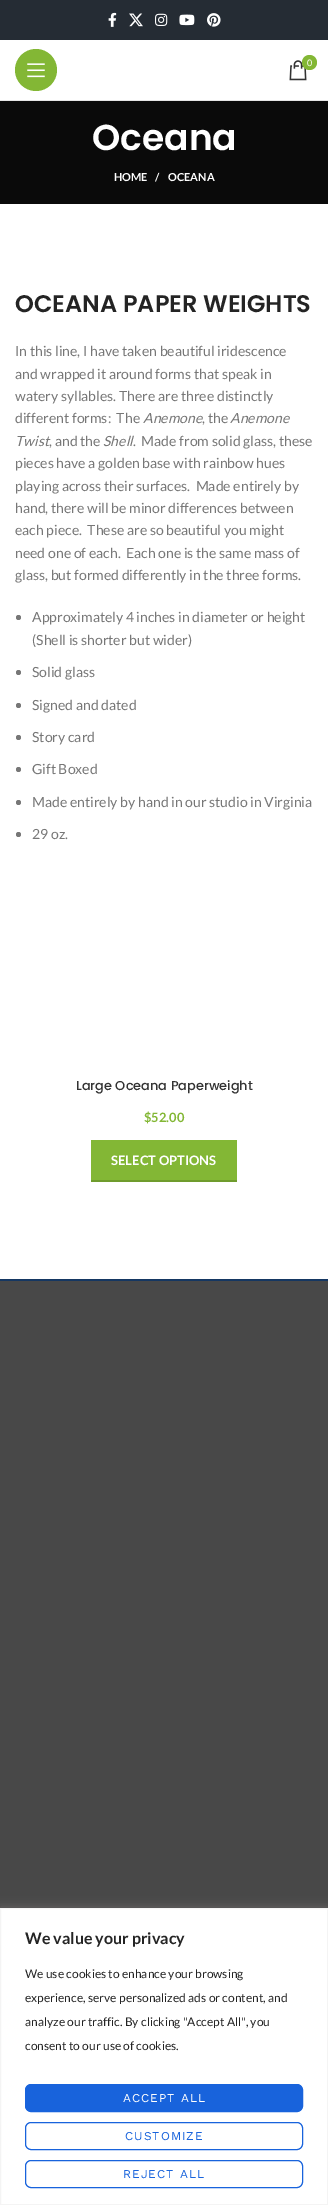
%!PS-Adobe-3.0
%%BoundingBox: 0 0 328 2205
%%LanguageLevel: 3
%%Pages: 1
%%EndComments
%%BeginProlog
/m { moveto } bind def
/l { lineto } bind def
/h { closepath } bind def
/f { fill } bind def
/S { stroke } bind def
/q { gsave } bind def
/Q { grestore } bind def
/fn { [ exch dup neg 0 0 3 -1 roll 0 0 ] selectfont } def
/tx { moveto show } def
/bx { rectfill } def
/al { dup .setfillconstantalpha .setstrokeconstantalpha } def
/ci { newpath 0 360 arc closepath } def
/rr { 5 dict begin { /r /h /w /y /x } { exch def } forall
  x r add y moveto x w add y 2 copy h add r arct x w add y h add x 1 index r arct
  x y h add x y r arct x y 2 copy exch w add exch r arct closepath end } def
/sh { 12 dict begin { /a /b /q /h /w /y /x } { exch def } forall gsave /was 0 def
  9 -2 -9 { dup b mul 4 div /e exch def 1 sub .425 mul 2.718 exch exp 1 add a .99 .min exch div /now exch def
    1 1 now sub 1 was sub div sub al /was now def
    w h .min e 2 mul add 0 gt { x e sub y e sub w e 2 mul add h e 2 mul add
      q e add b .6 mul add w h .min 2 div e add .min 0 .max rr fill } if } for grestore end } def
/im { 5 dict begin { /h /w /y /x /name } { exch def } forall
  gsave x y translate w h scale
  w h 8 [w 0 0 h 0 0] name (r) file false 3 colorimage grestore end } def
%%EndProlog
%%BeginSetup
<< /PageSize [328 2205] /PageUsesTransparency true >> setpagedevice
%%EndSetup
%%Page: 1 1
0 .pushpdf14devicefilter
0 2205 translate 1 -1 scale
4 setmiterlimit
1 setgray
0 0 328 2205 bx
0.145 0.173 0.204 setrgbcolor
0 0 328 40 bx
(image0.raw) 108 12 9 15 im
(image1.raw) 129 13 14 14 im
(image2.raw) 155 13 13 13 im
(image3.raw) 179 14 16 12 im
(image4.raw) 207 13 14 14 im
0.902 setgray
0 100 328 1 bx
0.514 0.718 0.208 setrgbcolor
36 70 21 ci f
(image5.raw) 27 63 18 15 im
(image6.raw) 289 60 18 21 im
309.5 62.5 7.5 ci f
/Lato-Regular 9 fn
1 setgray
(0) 307 66 tx
0.039 setgray
0 101 328 103 bx
/Poppins-SemiBold 36 fn
1 setgray
(Oceana) 92 150 tx
/Lato-Bold 11 fn
(HOME) 114 181 tx
(/) 155 181 tx
(OCEANA) 168 181 tx
/Poppins-SemiBold 24 fn
0.141 setgray
(OCEANA PAPER WEIGHTS) 15 312 tx
/Lato-Regular 14 fn
0.467 setgray
(In this line, I have taken beautiful iridescence) 15 356 tx
(and wrapped it around forms that speak in) 15 379 tx
(watery syllables. There are three distinctly) 15 401 tx
(different forms:  The) 15 423 tx
/Lato-Italic 14 fn
(Anemone) 143 423 tx
/Lato-Regular 14 fn
(, the) 202 423 tx
/Lato-Italic 14 fn
(Anemone) 230 423 tx
(Twist) 15 446 tx
/Lato-Regular 14 fn
(, and the) 49 446 tx
/Lato-Italic 14 fn
(Shell) 103 446 tx
/Lato-Regular 14 fn
(.  Made from solid glass, these) 133 446 tx
(pieces have a golden base with rainbow hues) 15 468 tx
(playing across their surfaces.  Made entirely by) 15 491 tx
(hand, there will be minor differences between) 15 513 tx
(each piece.  These are so beautiful you might) 15 535 tx
(need one of each.  Each one is the same mass of) 15 558 tx
(glass, but formed differently in the three forms.) 15 580 tx
18.5 617.5 2.5 ci f
(Approximately 4 inches in diameter or height) 32 622 tx
(\(Shell is shorter but wider\)) 32 645 tx
18.5 672.5 2.5 ci f
(Solid glass) 32 677 tx
18.5 705.5 2.5 ci f
(Signed and dated) 32 710 tx
18.5 737.5 2.5 ci f
(Story card) 32 742 tx
18.5 769.5 2.5 ci f
(Gift Boxed) 32 774 tx
18.5 802.5 2.5 ci f
(Made entirely by hand in our studio in Virginia) 32 807 tx
18.5 834.5 2.5 ci f
(29 oz.) 32 839 tx
/Poppins-Medium 12.9 fn
0.2 setgray
(Large Oceana Paperweight) 76 1090 tx
/Lato-Bold 12.9 fn
0.514 0.718 0.208 setrgbcolor
($52.00) 144 1122 tx
91 1140 146 40 bx
0.435 0.612 0.176 setrgbcolor
91 1180 146 2 bx
/Lato-Bold 13 fn
1 setgray
(SELECT OPTIONS) 111 1165 tx
0.282 setgray
0 1281 328 627 bx
0.082 0.216 0.384 setrgbcolor
0 1279 328 2 bx
0.675 0.671 0.671 setrgbcolor
0 1907 328 297 0 5 0.3 sh
1 setgray
0.5 1908.5 m 327.5 1908.5 l 327.5 2204.5 l 0.5 2204.5 l h q f Q
0.957 setgray
S
/Lato-Bold 16 fn
0.141 setgray
(We value your privacy) 25 1944 tx
/Lato-Regular 12 fn
(We use cookies to enhance your browsing) 25 1978 tx
(experience, serve personalized ads or content, and) 25 2002 tx
(analyze our traffic. By clicking "Accept All", you) 25 2026 tx
(consent to our use of cookies.) 25 2050 tx
0.094 0.388 0.863 setrgbcolor
25.5 2084.5 277 27 5.5 rr q f Q
S
/WorkSans-Regular 12 fn
1 setgray
123 2102 m 1 0 (ACCEPT ALL) ashow
0.094 0.388 0.863 setrgbcolor
25.5 2122.5 277 27 5.5 rr S
125 2140 m 1 0 (CUSTOMIZE) ashow
25.5 2160.5 277 27 5.5 rr S
123 2178 m 1 0 (REJECT ALL) ashow
.poppdf14devicefilter showpage
%%EOF
